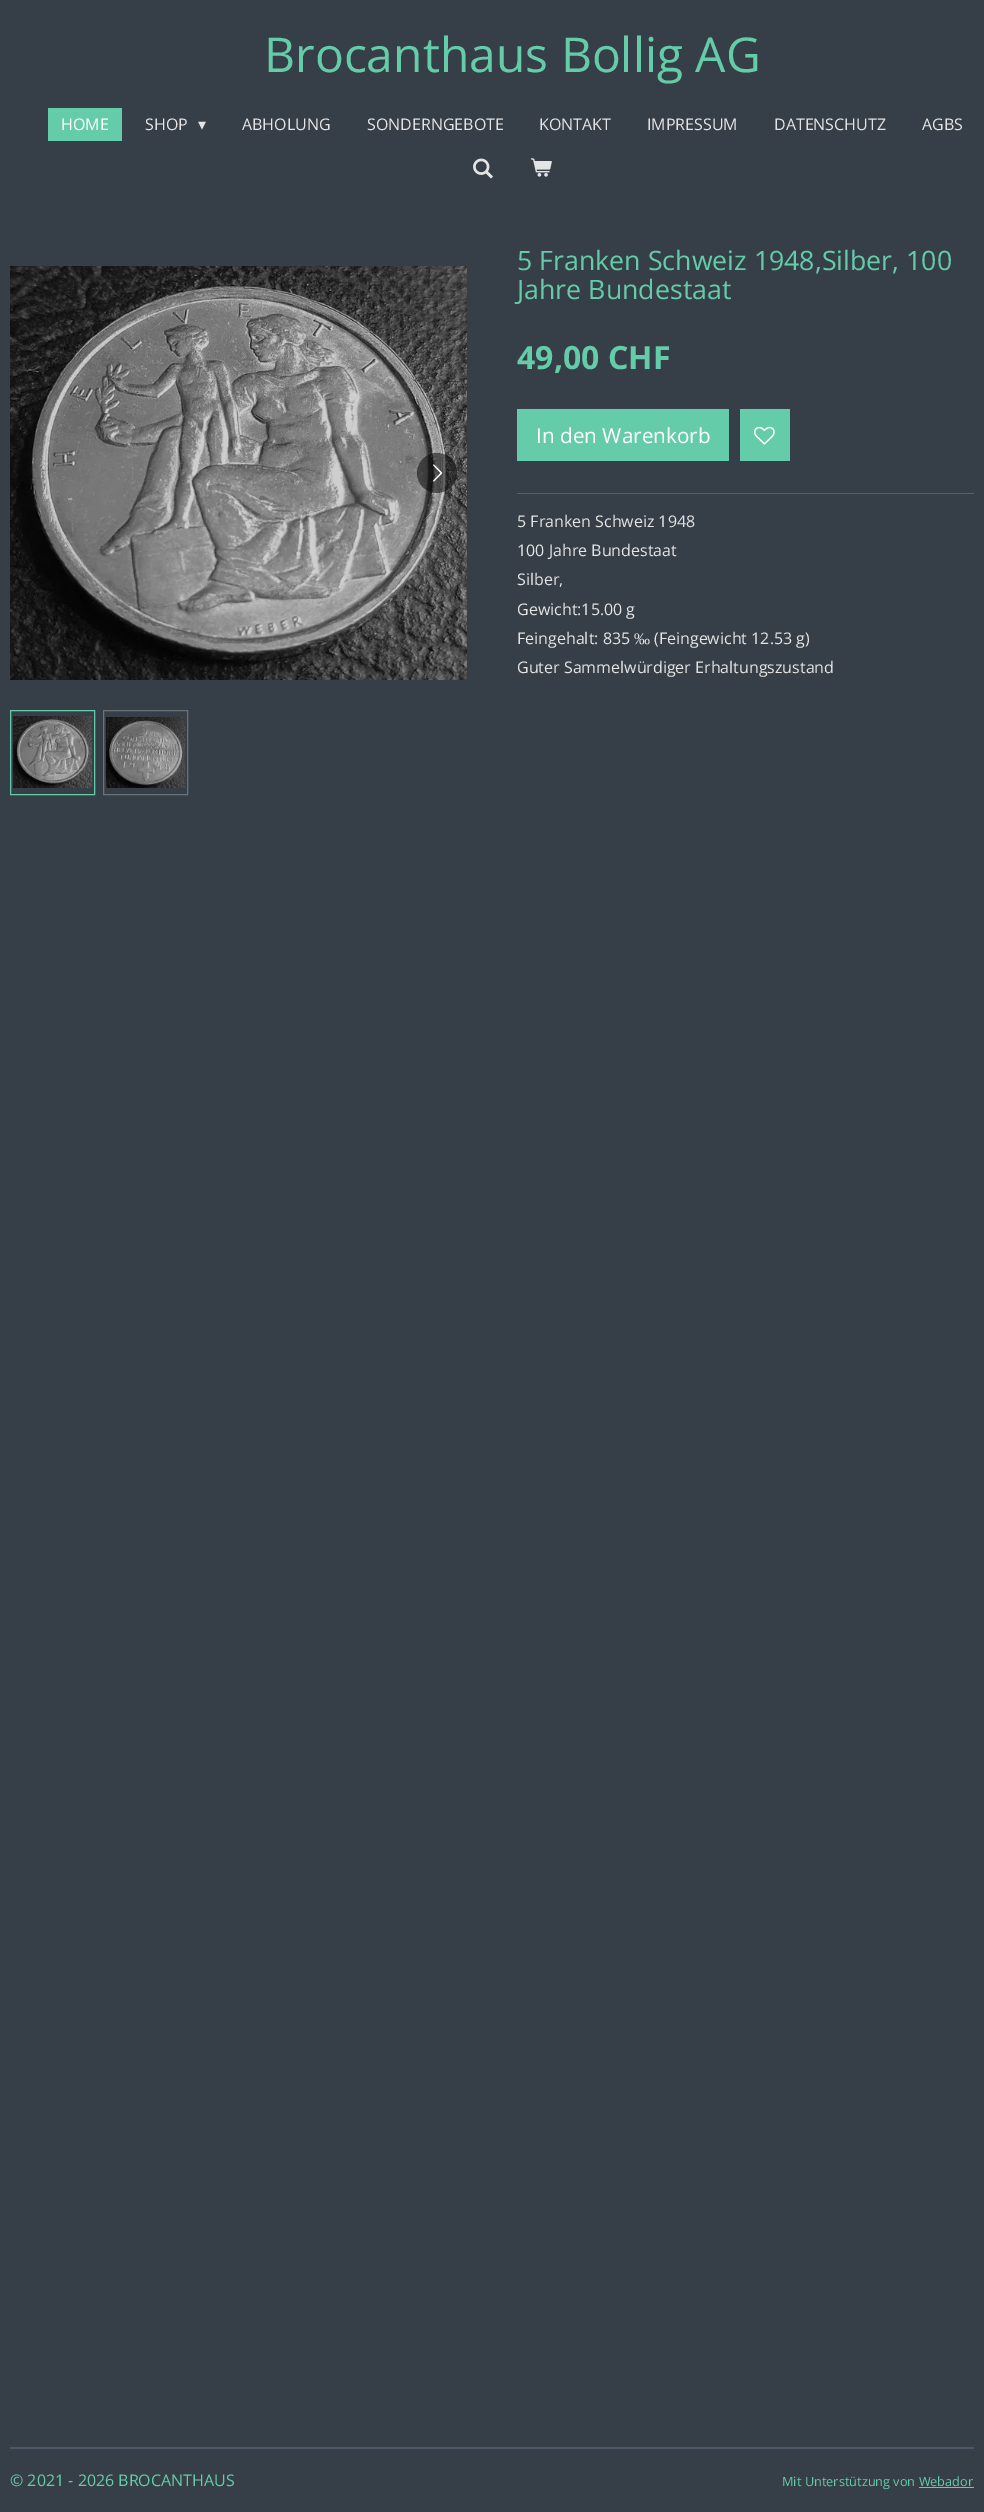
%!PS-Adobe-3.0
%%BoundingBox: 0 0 984 2512
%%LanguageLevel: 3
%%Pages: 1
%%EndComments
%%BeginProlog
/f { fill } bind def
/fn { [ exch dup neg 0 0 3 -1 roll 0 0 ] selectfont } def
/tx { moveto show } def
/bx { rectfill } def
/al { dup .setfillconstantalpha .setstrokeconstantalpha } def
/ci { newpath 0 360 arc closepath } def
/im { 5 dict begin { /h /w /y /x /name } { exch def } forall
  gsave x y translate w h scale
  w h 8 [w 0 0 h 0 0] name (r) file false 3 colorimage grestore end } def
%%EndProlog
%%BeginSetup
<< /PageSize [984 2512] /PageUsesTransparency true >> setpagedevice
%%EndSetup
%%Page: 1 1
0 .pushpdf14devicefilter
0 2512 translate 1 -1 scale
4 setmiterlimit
0.212 0.247 0.282 setrgbcolor
0 0 984 2512 bx
/OpenSans-Regular 48 fn
0.396 0.8 0.663 setrgbcolor
(Brocanthaus Bollig AG) 264 72 tx
48 108 74 33 bx
/OpenSans-Regular 16 fn
1 setgray
(HOME) 61 130 tx
0.894 setgray
(SHOP) 145 130 tx
/DejaVuSans-Regular 16 fn
(▾) 198 130 tx
/OpenSans-Regular 16 fn
(ABHOLUNG) 242 130 tx
(SONDERNGEBOTE) 367 130 tx
(KONTAKT) 539 130 tx
(IMPRESSUM) 647 130 tx
(DATENSCHUTZ) 774 130 tx
(AGBS) 922 130 tx
(image0.raw) 473 158 20 21 im
(image1.raw) 531 158 21 19 im
(image2.raw) 10 266 457 414 im
0.5 al
0 setgray
437 473 20 ci f
1 al
(image3.raw) 433 464 10 18 im
0.396 0.8 0.663 setrgbcolor
10.5 710.5 84 84 rectstroke
(image4.raw) 13 716 79 72 im
0.416 0.443 0.467 setrgbcolor
103.5 710.5 84 84 rectstroke
(image5.raw) 106 717 79 71 im
/OpenSans-Regular 26.75 fn
0.396 0.8 0.663 setrgbcolor
(5 Franken Schweiz 1948,Silber, 100) 517 270 tx
(Jahre Bundestaat) 517 299 tx
/OpenSans-Bold 32 fn
(49,00 CHF) 517 369 tx
517 409 212 52 bx
/OpenSans-Regular 20.75 fn
1 setgray
(In den Warenkorb) 536 443 tx
0.396 0.8 0.663 setrgbcolor
740 409 50 52 bx
(image6.raw) 754 426 21 19 im
0.349 0.376 0.404 setrgbcolor
517 493 457 1 bx
/OpenSans-Regular 16 fn
0.894 setgray
(5 Franken Schweiz 1948) 517 527 tx
(100 Jahre Bundestaat) 517 556 tx
(Silber,) 517 585 tx
(Gewicht:15.00 g) 517 615 tx
(Feingehalt: 835) 517 644 tx
/LiberationSerif-Regular 16 fn
(‰) 634 644 tx
/OpenSans-Regular 16 fn
(\(Feingewicht 12.53 g\)) 654 644 tx
(Guter Sammelwürdiger Erhaltungszustand) 517 673 tx
0.298 0.345 0.396 setrgbcolor
10 2447 964 2 bx
0.396 0.8 0.663 setrgbcolor
(© 2021 - 2026 BROCANTHAUS) 10 2486 tx
/OpenSans-Regular 12.75 fn
(Mit Unterstützung von Webador) 782 2486 tx
919 2487 55 1 bx
.poppdf14devicefilter showpage
%%EOF
